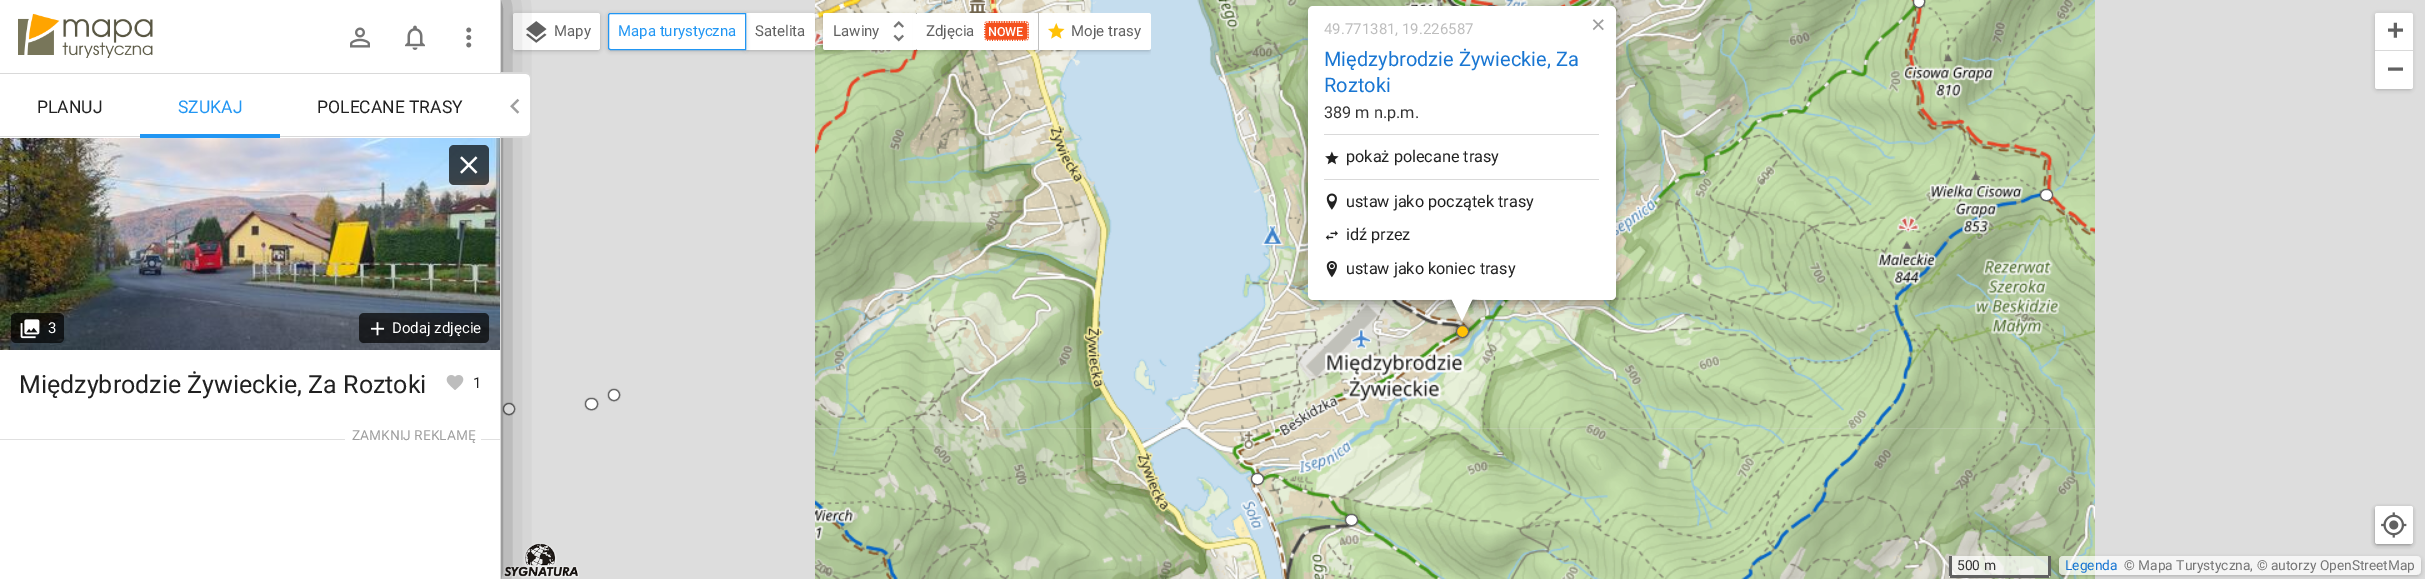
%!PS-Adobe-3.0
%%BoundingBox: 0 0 2425 579
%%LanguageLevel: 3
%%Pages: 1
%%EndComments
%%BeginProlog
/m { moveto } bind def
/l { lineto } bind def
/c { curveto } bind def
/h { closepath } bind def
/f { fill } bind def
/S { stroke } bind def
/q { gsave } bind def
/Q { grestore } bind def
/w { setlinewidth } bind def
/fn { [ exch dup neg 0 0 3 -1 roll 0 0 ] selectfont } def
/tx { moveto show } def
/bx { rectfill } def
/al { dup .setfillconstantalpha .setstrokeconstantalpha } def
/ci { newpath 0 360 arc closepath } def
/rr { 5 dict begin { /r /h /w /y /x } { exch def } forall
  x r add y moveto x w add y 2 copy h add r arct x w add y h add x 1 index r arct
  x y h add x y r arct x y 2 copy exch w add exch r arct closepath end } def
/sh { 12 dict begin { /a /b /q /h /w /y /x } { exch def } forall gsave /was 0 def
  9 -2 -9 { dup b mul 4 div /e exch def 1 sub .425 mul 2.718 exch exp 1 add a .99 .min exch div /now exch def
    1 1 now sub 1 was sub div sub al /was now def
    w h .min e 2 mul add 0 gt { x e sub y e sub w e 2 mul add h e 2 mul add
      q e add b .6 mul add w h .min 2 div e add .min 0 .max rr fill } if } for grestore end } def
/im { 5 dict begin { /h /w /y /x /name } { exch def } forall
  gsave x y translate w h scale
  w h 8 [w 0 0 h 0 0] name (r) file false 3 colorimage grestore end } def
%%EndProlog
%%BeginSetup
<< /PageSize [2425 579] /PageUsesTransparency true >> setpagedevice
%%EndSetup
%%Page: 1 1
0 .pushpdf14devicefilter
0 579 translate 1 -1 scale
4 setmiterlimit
0.867 setgray
0 0 2425 579 bx
0 setgray
503 403 12 12 6 0.5 0.5 sh
1 setgray
509 409 5.5 ci q f Q
0.4 setgray
S
0 setgray
514 15 85 35 1 2.5 0.3 sh
1 setgray
513 13 87 37 2.5 rr f
(image26.raw) 526 21 21 22 im
(image29.raw) 504 543 75 35 im
0 setgray
-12 0 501 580 0 19 1 sh
1 setgray
0 0 500 579 bx
0.851 setgray
500 0 1 579 bx
0 73 500 1 bx
(image0.raw) 18 13 135 45 im
(image1.raw) 350 27 20 21 im
(image2.raw) 405 25 20 25 im
(image3.raw) 466 27 6 21 im
0 136 500 1 bx
/Roboto-Regular 17.5 fn
0.129 setgray
(PLANUJ) 37 113 tx
0.129 0.588 0.953 setrgbcolor
140 134 140 4 bx
(SZUKAJ) 178 113 tx
0.129 setgray
(POLECANE TRASY) 317 113 tx
(image5.raw) 0 138 500 212 im
0.7 al
0 setgray
449 145 40 40 5 rr f
1 al
(image4.raw) 460 156 18 18 im
0.7 al
11 313 53 30 5 rr f
1 al
(image6.raw) 20 319 20 20 im
/Roboto-Regular 15 fn
1 setgray
(3) 48 333 tx
0.7 al
0 setgray
359 313 130 30 5 rr f
1 al
(image7.raw) 370 322 15 14 im
1 setgray
(Dodaj zdjęcie) 392 333 tx
/Roboto-Regular 25 fn
0.129 setgray
(Międzybrodzie Żywieckie, Za Roztoki) 19 393 tx
(image8.raw) 446 375 18 15 im
/Roboto-Regular 15 fn
(1) 473 388 tx
1 setgray
500 74 m 526 74 l 528 74 530 76 530 78 c 530 132 l 530 134 528 136 526 136 c 500 136 l h f
0.851 setgray
500 72 m 526 72 l 529 72 531 75 531 78 c 531 132 l 531 135 529 138 526 138 c 500 138 l h 500 74 m 526 74 l 528 74 530 75 530 78 c 530 132 l 530 135 528 136 526 136 c 500 136 l h eofill
(image9.raw) 510 98 10 16 im
0.878 setgray
0 439 500 1 bx
1 setgray
345 439 136 1 bx
/Roboto-Regular 13.75 fn
0.62 setgray
(ZAMKNIJ REKLAMĘ) 352 440 tx
(image12.raw) 1455 0 320 109 im
0 setgray
1485 5 13 13 6.5 0.5 0.5 sh
0.4 setgray
1491.5 11.5 6 ci S
(image13.raw) 1775 0 320 109 im
0 setgray
1913 -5 12 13 6 0.5 0.5 sh
1 setgray
1913.5 -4.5 11 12 5.5 rr q f Q
0.4 setgray
S
(image17.raw) 1775 109 320 320 im
0 setgray
2040 189 13 12 6 0.5 0.5 sh
1 setgray
2040.5 189.5 12 11 5.5 rr q f Q
0.4 setgray
S
(image15.raw) 1135 109 320 320 im
(image16.raw) 1455 109 320 320 im
0 setgray
1456 325 13 13 6.5 4 0.5 sh
1 0.757 0.027 setrgbcolor
1462.5 331.5 6 ci q f Q
0.4 setgray
S
0 setgray
585 398 13 12 6 0.5 0.5 sh
1 setgray
585.5 398.5 12 11 5.5 rr q f Q
0.4 setgray
S
0 setgray
608 389 12 12 6 0.5 0.5 sh
1 setgray
614 395 5.5 ci q f Q
0.4 setgray
S
(image19.raw) 1135 429 320 150 im
0 setgray
1251 473 13 12 6 0.5 0.5 sh
1 setgray
1251.5 473.5 12 11 5.5 rr q f Q
0.4 setgray
S
0 setgray
1345 514 13 12 6 0.5 0.5 sh
1 setgray
1345.5 514.5 12 11 5.5 rr q f Q
0.4 setgray
S
(image10.raw) 815 0 320 109 im
(image11.raw) 1135 0 320 109 im
(image14.raw) 815 109 320 320 im
(image18.raw) 815 429 320 150 im
(image20.raw) 1455 429 320 150 im
(image21.raw) 1775 429 320 150 im
0 setgray
1310 14 304 289 2.5 6 0.4 sh
1 setgray
1308 6 308 294 5 rr f
/Roboto-Regular 15 fn
0.741 setgray
(49.771381, 19.226587) 1324 34 tx
/Roboto-Regular 20 fn
0.098 0.463 0.824 setrgbcolor
(Międzybrodzie Żywieckie, Za) 1324 66 tx
(Roztoki) 1324 92 tx
/Roboto-Regular 16.25 fn
0.2 setgray
(389 m n.p.m.) 1324 118 tx
0.851 setgray
1324 134 275 1 bx
(image22.raw) 1325 151 14 14 im
0.129 setgray
(pokaż polecane trasy) 1346 162 tx
0.851 setgray
1324 179 275 1 bx
(image23.raw) 1326 193 11 17 im
0.129 setgray
(ustaw jako początek trasy) 1346 207 tx
(image24.raw) 1325 230 13 10 im
(idź przez) 1346 240 tx
(image25.raw) 1326 261 11 17 im
(ustaw jako koniec trasy) 1346 274 tx
/LiberationSans-Regular 25 fn
0.62 setgray
(×) 1591 33 tx
q
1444 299 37 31 rectclip
0 setgray
1454 288 17 17 0 4.5 0.7 sh
Q
q
1444 299 37 31 rectclip
1 setgray
1462 272 m 1474 296 l 1462 321 l 1450 296 l h f
Q
/Roboto-Regular 15 fn
0.38 setgray
(Mapy) 554 36 tx
0 setgray
746 15 68 35 1 2.5 0.3 sh
1 setgray
745 13 m 812.5 13 l 814 13 815 14 815 15.5 c 815 47.5 l 815 49 814 50 812.5 50 c 745 50 l h f
0 setgray
609 15 136 35 1 2.5 0.3 sh
1 setgray
610.5 13.5 m 745.5 13.5 l 745.5 49.5 l 610.5 49.5 l 609.5 49.5 608.5 48.5 608.5 47.5 c 608.5 15.5 l 608.5 14.5 609.5 13.5 610.5 13.5 c h q f Q
0.129 0.588 0.953 setrgbcolor
S
(Mapa turystyczna) 618 36 tx
0.38 setgray
(Satelita) 755 36 tx
0 setgray
824 15 92 35 1 2.5 0.3 sh
1 setgray
825.5 13 m 918 13 l 918 50 l 825.5 50 l 824 50 823 49 823 47.5 c 823 15.5 l 823 14 824 13 825.5 13 c h f
0 setgray
918 15 120 35 0 2.5 0.3 sh
0.753 setgray
916 13 1 37 bx
0.38 setgray
(Lawiny) 833 36 tx
(image27.raw) 893 21 11 21 im
1 setgray
913 14 4 35 bx
917 13 121 37 bx
0.38 setgray
(Zdjęcia) 926 36 tx
0.957 0.318 0.118 setrgbcolor
984 21 45 20 4 rr f
1 setgray
1.2 w
[1.25 1.25] 0 setdash
987.5 22 m 1025 22 l 1026.5 22 1028 23.5 1028 25 c 1028 37.5 l 1028 39 1026.5 40.5 1025 40.5 c 987.5 40.5 l 986 40.5 984.5 39 984.5 37.5 c 984.5 25 l 984.5 23.5 986 22 987.5 22 c h S
/Roboto-Medium 12.5 fn
(NOWE) 988 36 tx
q
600 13 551 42 rectclip
0 setgray
1039 15 111 35 1 2.5 0.3 sh
Q
1034 14 4 35 bx
1038 13 m 1148.5 13 l 1150 13 1151 14 1151 15.5 c 1151 47.5 l 1151 49 1150 50 1148.5 50 c 1038 50 l h f
0.753 setgray
1038 13 1 37 bx
(image28.raw) 1048 23 17 16 im
/Roboto-Regular 15 fn
0.38 setgray
(Moje trasy) 1071 36 tx
0 setgray
2376 15 35 74 1 2.5 0.3 sh
1 setgray
2377.5 13 m 2410.5 13 l 2412 13 2413 14 2413 15.5 c 2413 51 l 2375 51 l 2375 15.5 l 2375 14 2376 13 2377.5 13 c h f
0.851 setgray
2375 50 38 1 bx
/DejaVuSansMono-Bold 28 fn
0.38 setgray
(+) 2387 39 tx
1 setgray
2375 51 m 2413 51 l 2413 86.5 l 2413 88 2412 89 2410.5 89 c 2377.5 89 l 2376 89 2375 88 2375 86.5 c h f
0.38 setgray
(−) 2387 78 tx
0 setgray
2376 509 35 35 1 2.5 0.3 sh
2376 509 35 35 1 2.5 0.3 sh
1 setgray
2375 506 38 38 2.5 rr f
(image30.raw) 2381 512 26 26 im
q
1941 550 m 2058 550 l 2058 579 l 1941 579 l h 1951.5 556 m 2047.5 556 l 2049 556 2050 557 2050 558.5 c 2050 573.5 l 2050 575 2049 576 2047.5 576 c 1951.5 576 l 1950 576 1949 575 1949 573.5 c 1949 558.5 l 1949 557 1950 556 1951.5 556 c h eoclip newpath
0 setgray
1950 559 99 17 1 2.5 0.3 sh
Q
0.7 al
1949 556 m 2050 556 l 2050 575.5 l 2050 577 2049 578 2047.5 578 c 1951.5 578 l 1950 578 1949 577 1949 575.5 c h f
1 al
0.38 setgray
2048 556 3 20 bx
1950 575 99 3 bx
1949 556 3 20 bx
/Roboto-Regular 13.75 fn
0.2 setgray
(500 m) 1957 570 tx
q
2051 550 m 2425 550 l 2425 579 l 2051 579 l h 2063 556 m 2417 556 l 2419 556 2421 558 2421 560 c 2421 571 l 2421 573 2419 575 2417 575 c 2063 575 l 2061 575 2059 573 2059 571 c 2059 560 l 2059 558 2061 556 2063 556 c h eoclip newpath
0 setgray
2060 559 360 16 2.5 2.5 0.3 sh
Q
0.7 al
1 setgray
2059 556 362 19 4 rr f
1 al
0.098 0.463 0.824 setrgbcolor
(Legenda) 2065 570 tx
0.459 setgray
(© Mapa Turystyczna, © autorzy OpenStreetMap) 2124 570 tx
.poppdf14devicefilter showpage
%%EOF
